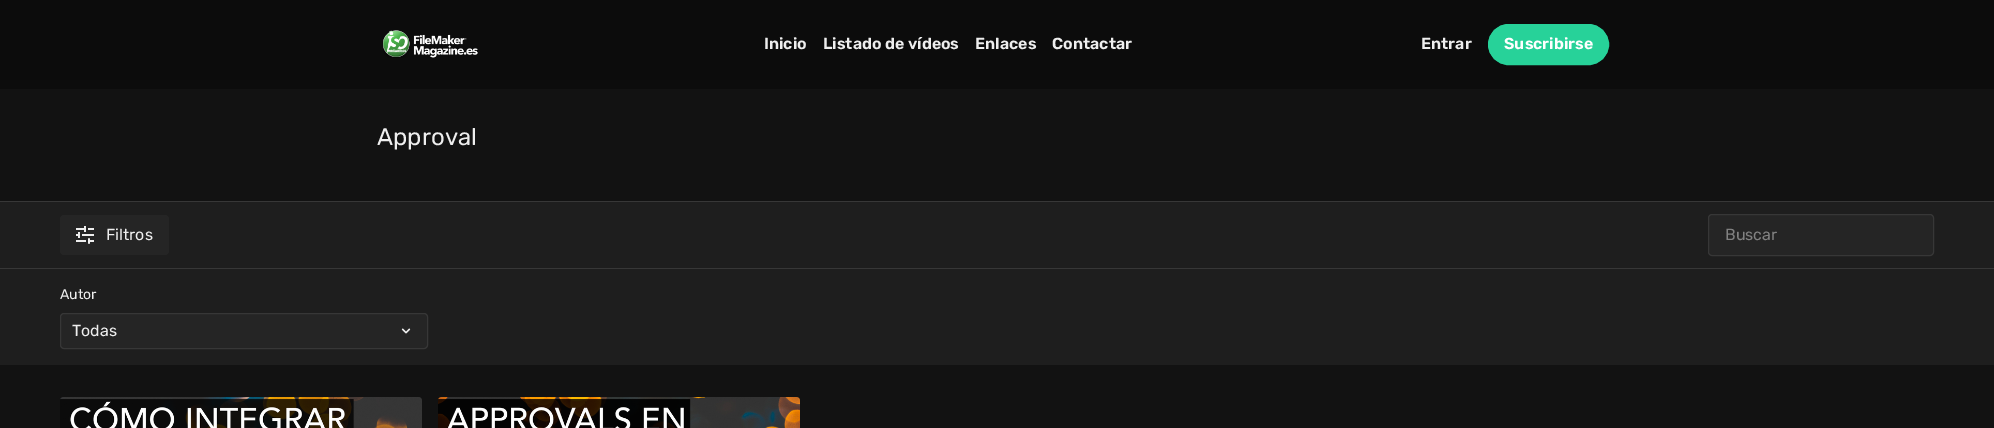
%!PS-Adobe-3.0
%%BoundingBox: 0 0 1994 428
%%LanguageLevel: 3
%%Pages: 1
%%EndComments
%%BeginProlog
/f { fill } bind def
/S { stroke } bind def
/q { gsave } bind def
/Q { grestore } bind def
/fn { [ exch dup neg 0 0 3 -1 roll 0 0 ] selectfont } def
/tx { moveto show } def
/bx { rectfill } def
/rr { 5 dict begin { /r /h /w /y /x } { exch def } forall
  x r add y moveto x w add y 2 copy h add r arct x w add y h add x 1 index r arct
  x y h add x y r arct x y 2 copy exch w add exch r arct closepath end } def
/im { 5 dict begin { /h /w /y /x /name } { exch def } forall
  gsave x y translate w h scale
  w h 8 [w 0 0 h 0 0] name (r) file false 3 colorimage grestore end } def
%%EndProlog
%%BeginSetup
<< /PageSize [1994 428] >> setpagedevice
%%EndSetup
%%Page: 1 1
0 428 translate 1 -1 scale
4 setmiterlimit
0.071 setgray
0 0 1994 428 bx
0.047 setgray
0 0 1994 89 bx
(image0.raw) 383 30 95 28 im
/Rubik-SemiBold 16 fn
0.933 setgray
(Inicio) 764 49 tx
(Listado de vídeos) 823 49 tx
(Enlaces) 975 49 tx
(Contactar) 1052 49 tx
(Entrar) 1421 49 tx
0.153 0.824 0.6 setrgbcolor
1488.5 24.5 120 40 20 rr q f Q
S
1 setgray
(Suscribirse) 1504 49 tx
0.216 setgray
0 201 1994 1 bx
/Rubik-Regular 24 fn
0.933 setgray
(Approval) 377 145 tx
0.118 setgray
0 202 1994 163 bx
0.216 setgray
0 268 1994 1 bx
0.145 setgray
60 215 109 40 4 rr f
(image1.raw) 76 226 18 18 im
/Rubik-Regular 16 fn
0.933 setgray
(Filtros) 106 240 tx
0.145 setgray
1708.5 214.5 225 41 3.5 rr q f Q
0.216 setgray
S
0.506 setgray
(Buscar) 1725 240 tx
/Rubik-Regular 14 fn
0.933 setgray
(Autor) 60 299 tx
0.145 setgray
60 313 368 36 4 rr f
(image2.raw) 401 328 10 6 im
0.216 setgray
60.5 313.5 367 35 3.5 rr S
/Rubik-Regular 16 fn
0.933 setgray
(Todas) 72 336 tx
(image3.raw) 60 397 362 31 im
(image4.raw) 438 397 362 31 im
showpage
%%EOF
